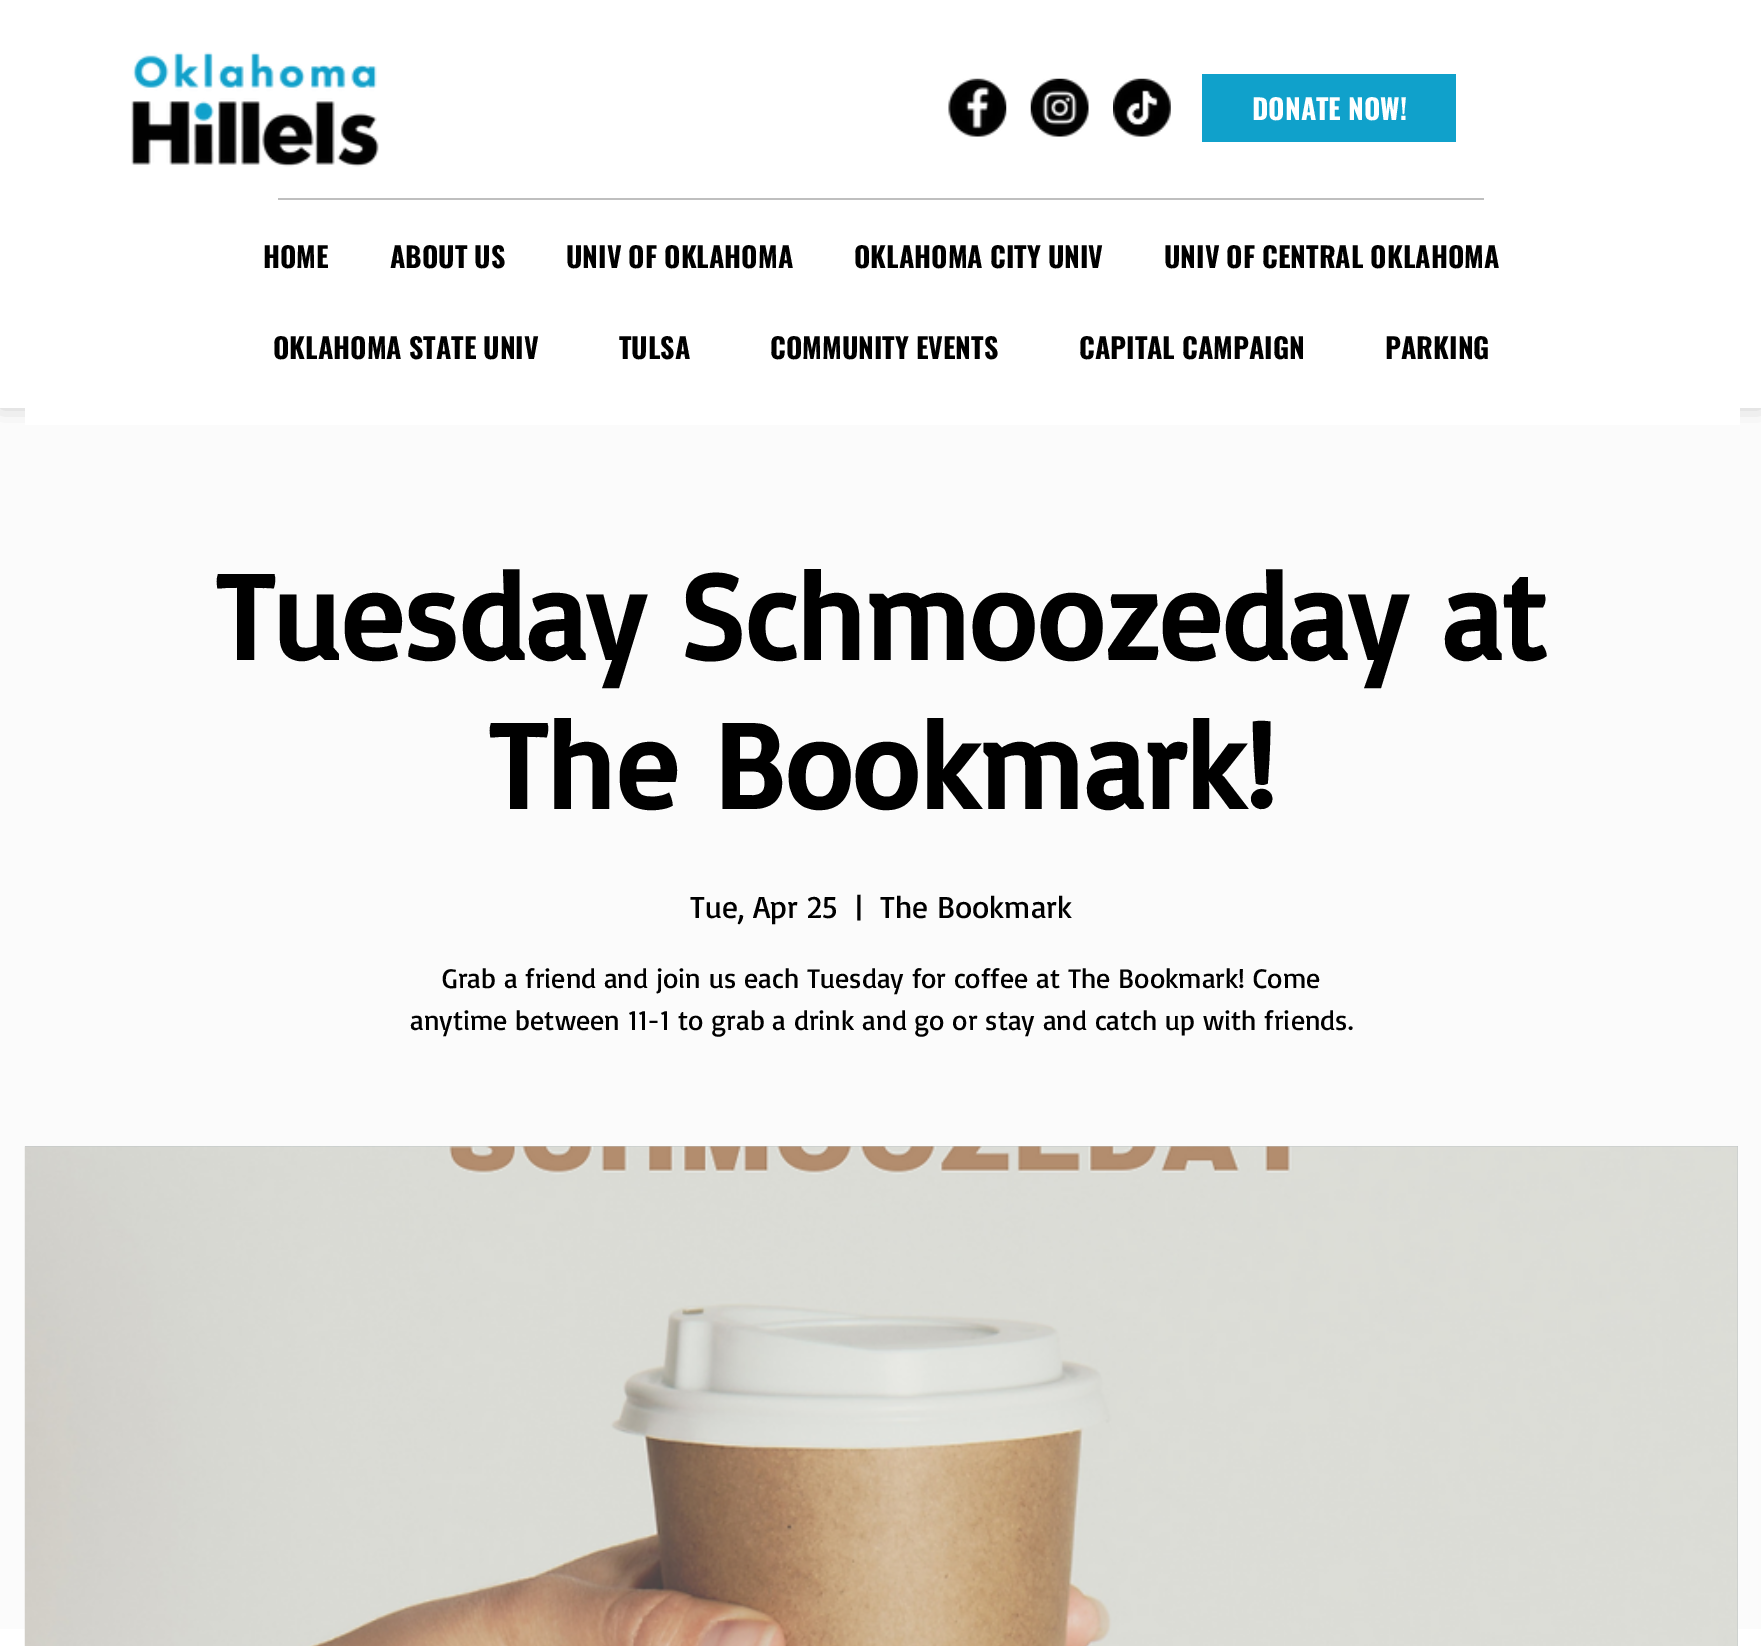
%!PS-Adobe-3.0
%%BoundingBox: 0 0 1761 1646
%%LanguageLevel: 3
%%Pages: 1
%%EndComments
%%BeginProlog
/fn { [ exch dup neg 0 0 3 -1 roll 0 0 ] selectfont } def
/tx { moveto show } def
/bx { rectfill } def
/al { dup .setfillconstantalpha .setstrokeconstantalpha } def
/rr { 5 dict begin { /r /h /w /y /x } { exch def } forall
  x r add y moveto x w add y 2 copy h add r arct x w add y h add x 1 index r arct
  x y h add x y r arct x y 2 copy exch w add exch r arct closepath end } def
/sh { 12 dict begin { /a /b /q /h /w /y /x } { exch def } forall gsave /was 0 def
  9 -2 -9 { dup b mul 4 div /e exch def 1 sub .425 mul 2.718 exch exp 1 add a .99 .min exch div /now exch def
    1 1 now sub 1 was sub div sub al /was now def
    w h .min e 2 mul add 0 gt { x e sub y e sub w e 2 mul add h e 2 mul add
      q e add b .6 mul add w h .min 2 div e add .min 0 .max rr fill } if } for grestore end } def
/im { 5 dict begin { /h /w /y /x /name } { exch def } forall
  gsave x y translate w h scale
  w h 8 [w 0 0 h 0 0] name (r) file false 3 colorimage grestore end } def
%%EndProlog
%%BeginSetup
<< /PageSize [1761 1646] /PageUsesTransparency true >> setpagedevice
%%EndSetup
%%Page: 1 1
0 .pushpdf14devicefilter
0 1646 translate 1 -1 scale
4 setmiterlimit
1 setgray
0 0 1761 1646 bx
0 setgray
0 0 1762 408 0 12 0.2 sh
1 setgray
0 0 1761 408 bx
(image0.raw) 131 52 248 115 im
(image1.raw) 948 78 59 59 im
(image2.raw) 1030 78 59 59 im
(image3.raw) 1113 78 58 59 im
0.063 0.631 0.796 setrgbcolor
1202 74 254 68 bx
/Oswald-Bold 28 fn
1 setgray
(DONATE NOW!) 1252 120 tx
0.749 setgray
278 198 1206 2 bx
0 setgray
(HOME) 263 268 tx
(ABOUT US) 390 268 tx
(UNIV OF OKLAHOMA) 566 268 tx
(OKLAHOMA CITY UNIV) 854 268 tx
(UNIV OF CENTRAL OKLAHOMA) 1164 268 tx
(OKLAHOMA STATE UNIV) 273 359 tx
(TULSA) 619 359 tx
(COMMUNITY EVENTS) 770 359 tx
(CAPITAL CAMPAIGN) 1079 359 tx
(PARKING) 1385 359 tx
1 setgray
25 408 1715 17 bx
0.984 setgray
0 427 1761 1202 bx
/Basic-Bold 124.25 fn
0 setgray
(Tuesday Schmoozeday at) 215 660 tx
(The Bookmark!) 488 809 tx
/Basic-Regular 31.5 fn
(Tue, Apr 25) 690 918 tx
(|) 855 918 tx
(The Bookmark) 880 918 tx
/Basic-Regular 28 fn
(Grab a friend and join us each Tuesday for coffee at The Bookmark! Come) 442 988 tx
(anytime between 11-1 to grab a drink and go or stay and catch up with friends.) 410 1030 tx
0.733 0.765 0.773 setrgbcolor
25 1146 1713 500 bx
(image4.raw) 24 1146 1714 500 im
.poppdf14devicefilter showpage
%%EOF
